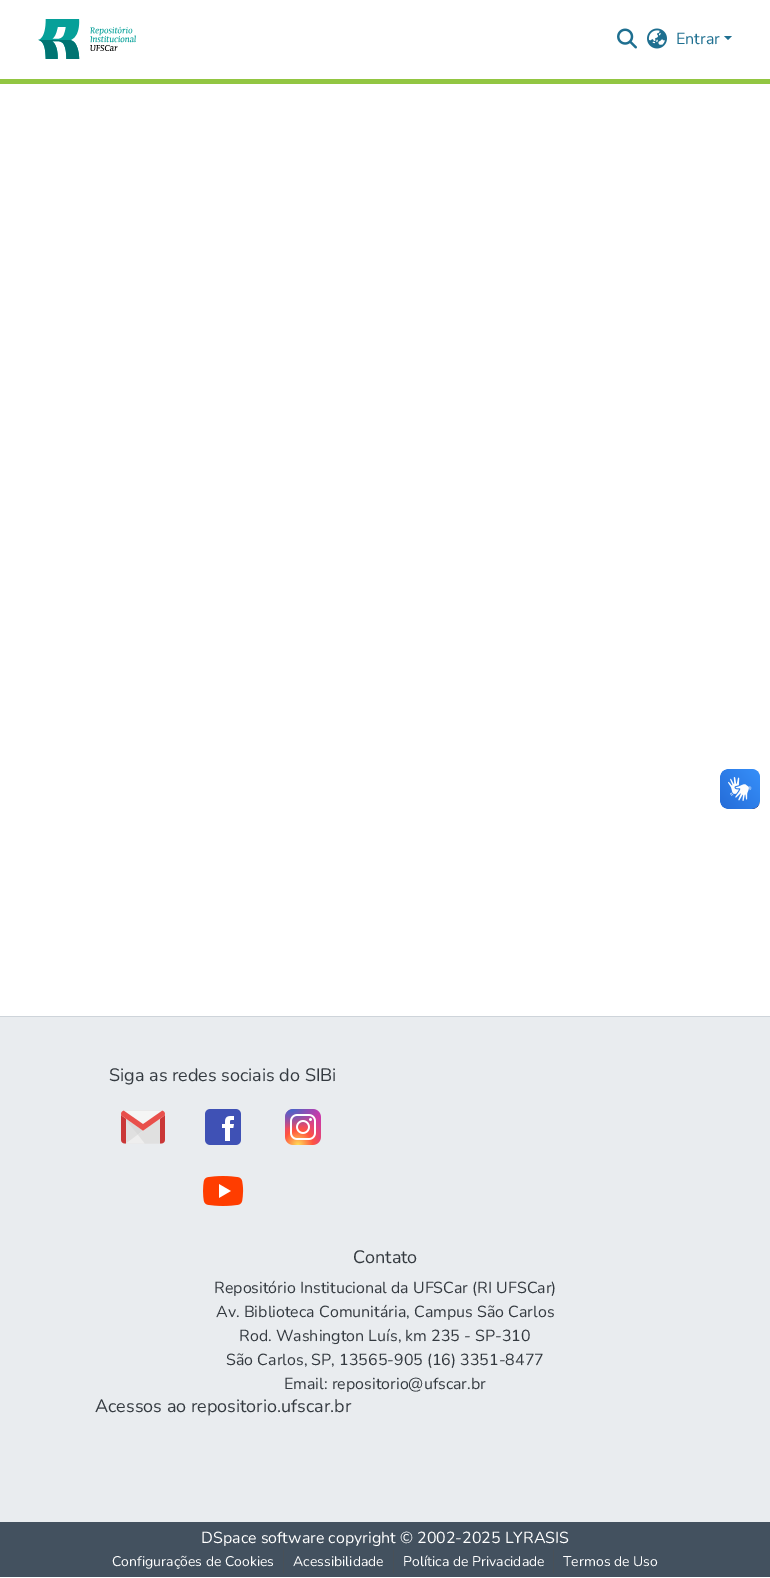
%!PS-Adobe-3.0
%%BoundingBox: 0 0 770 1578
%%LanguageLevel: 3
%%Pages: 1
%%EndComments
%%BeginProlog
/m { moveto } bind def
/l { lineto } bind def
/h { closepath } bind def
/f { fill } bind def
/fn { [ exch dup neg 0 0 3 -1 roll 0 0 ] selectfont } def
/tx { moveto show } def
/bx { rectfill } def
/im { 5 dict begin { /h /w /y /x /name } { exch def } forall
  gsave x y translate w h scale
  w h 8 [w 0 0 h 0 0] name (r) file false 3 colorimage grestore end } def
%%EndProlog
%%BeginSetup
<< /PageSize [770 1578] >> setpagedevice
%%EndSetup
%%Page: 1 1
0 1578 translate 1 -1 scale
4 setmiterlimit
1 setgray
0 0 770 1578 bx
0.573 0.776 0.259 setrgbcolor
0 79 770 5 bx
(image0.raw) 38 19 98 40 im
(image1.raw) 617 28 20 21 im
(image2.raw) 647 28 20 21 im
/Nunito-Regular 16 fn
0.118 0.435 0.565 setrgbcolor
(Entrar) 676 44 tx
724 36 m 732 36 l 728 40 l h f
0.263 0.318 0.373 setrgbcolor
0 1522 770 55 bx
0.808 0.831 0.855 setrgbcolor
0 1016 770 1 bx
0.914 0.925 0.937 setrgbcolor
0 1017 770 505 bx
/Nunito-Regular 18 fn
0.204 0.227 0.251 setrgbcolor
(Siga as redes sociais do SIBi) 109 1081 tx
(image3.raw) 121 1110 44 34 im
(image4.raw) 205 1109 36 36 im
(image5.raw) 285 1109 36 36 im
(image6.raw) 203 1176 41 30 im
(Contato) 353 1263 tx
/Nunito-Regular 16 fn
(Repositório Institucional da UFSCar \(RI UFSCar\)) 214 1293 tx
(Av. Biblioteca Comunitária, Campus São Carlos) 216 1317 tx
(Rod. Washington Luís, km 235 - SP-310) 239 1341 tx
(São Carlos, SP, 13565-905 \(16\) 3351-8477) 226 1365 tx
(Email: repositorio@ufscar.br) 284 1389 tx
/Nunito-Regular 18 fn
(Acessos ao repositorio.ufscar.br) 95 1412 tx
/Nunito-Regular 16 fn
1 setgray
(DSpace software copyright © 2002-2025 LYRASIS) 201 1543 tx
/Nunito-Regular 14 fn
(Configurações de Cookies) 112 1566 tx
0.286 0.314 0.341 setrgbcolor
283 1550 1 23 bx
1 setgray
(Acessibilidade) 293 1566 tx
0.286 0.314 0.341 setrgbcolor
393 1550 1 23 bx
1 setgray
(Política de Privacidade) 403 1566 tx
0.286 0.314 0.341 setrgbcolor
553 1550 1 23 bx
1 setgray
(Termos de Uso) 563 1566 tx
(image7.raw) 720 769 40 40 im
(image8.raw) 720 769 40 40 im
showpage
%%EOF
